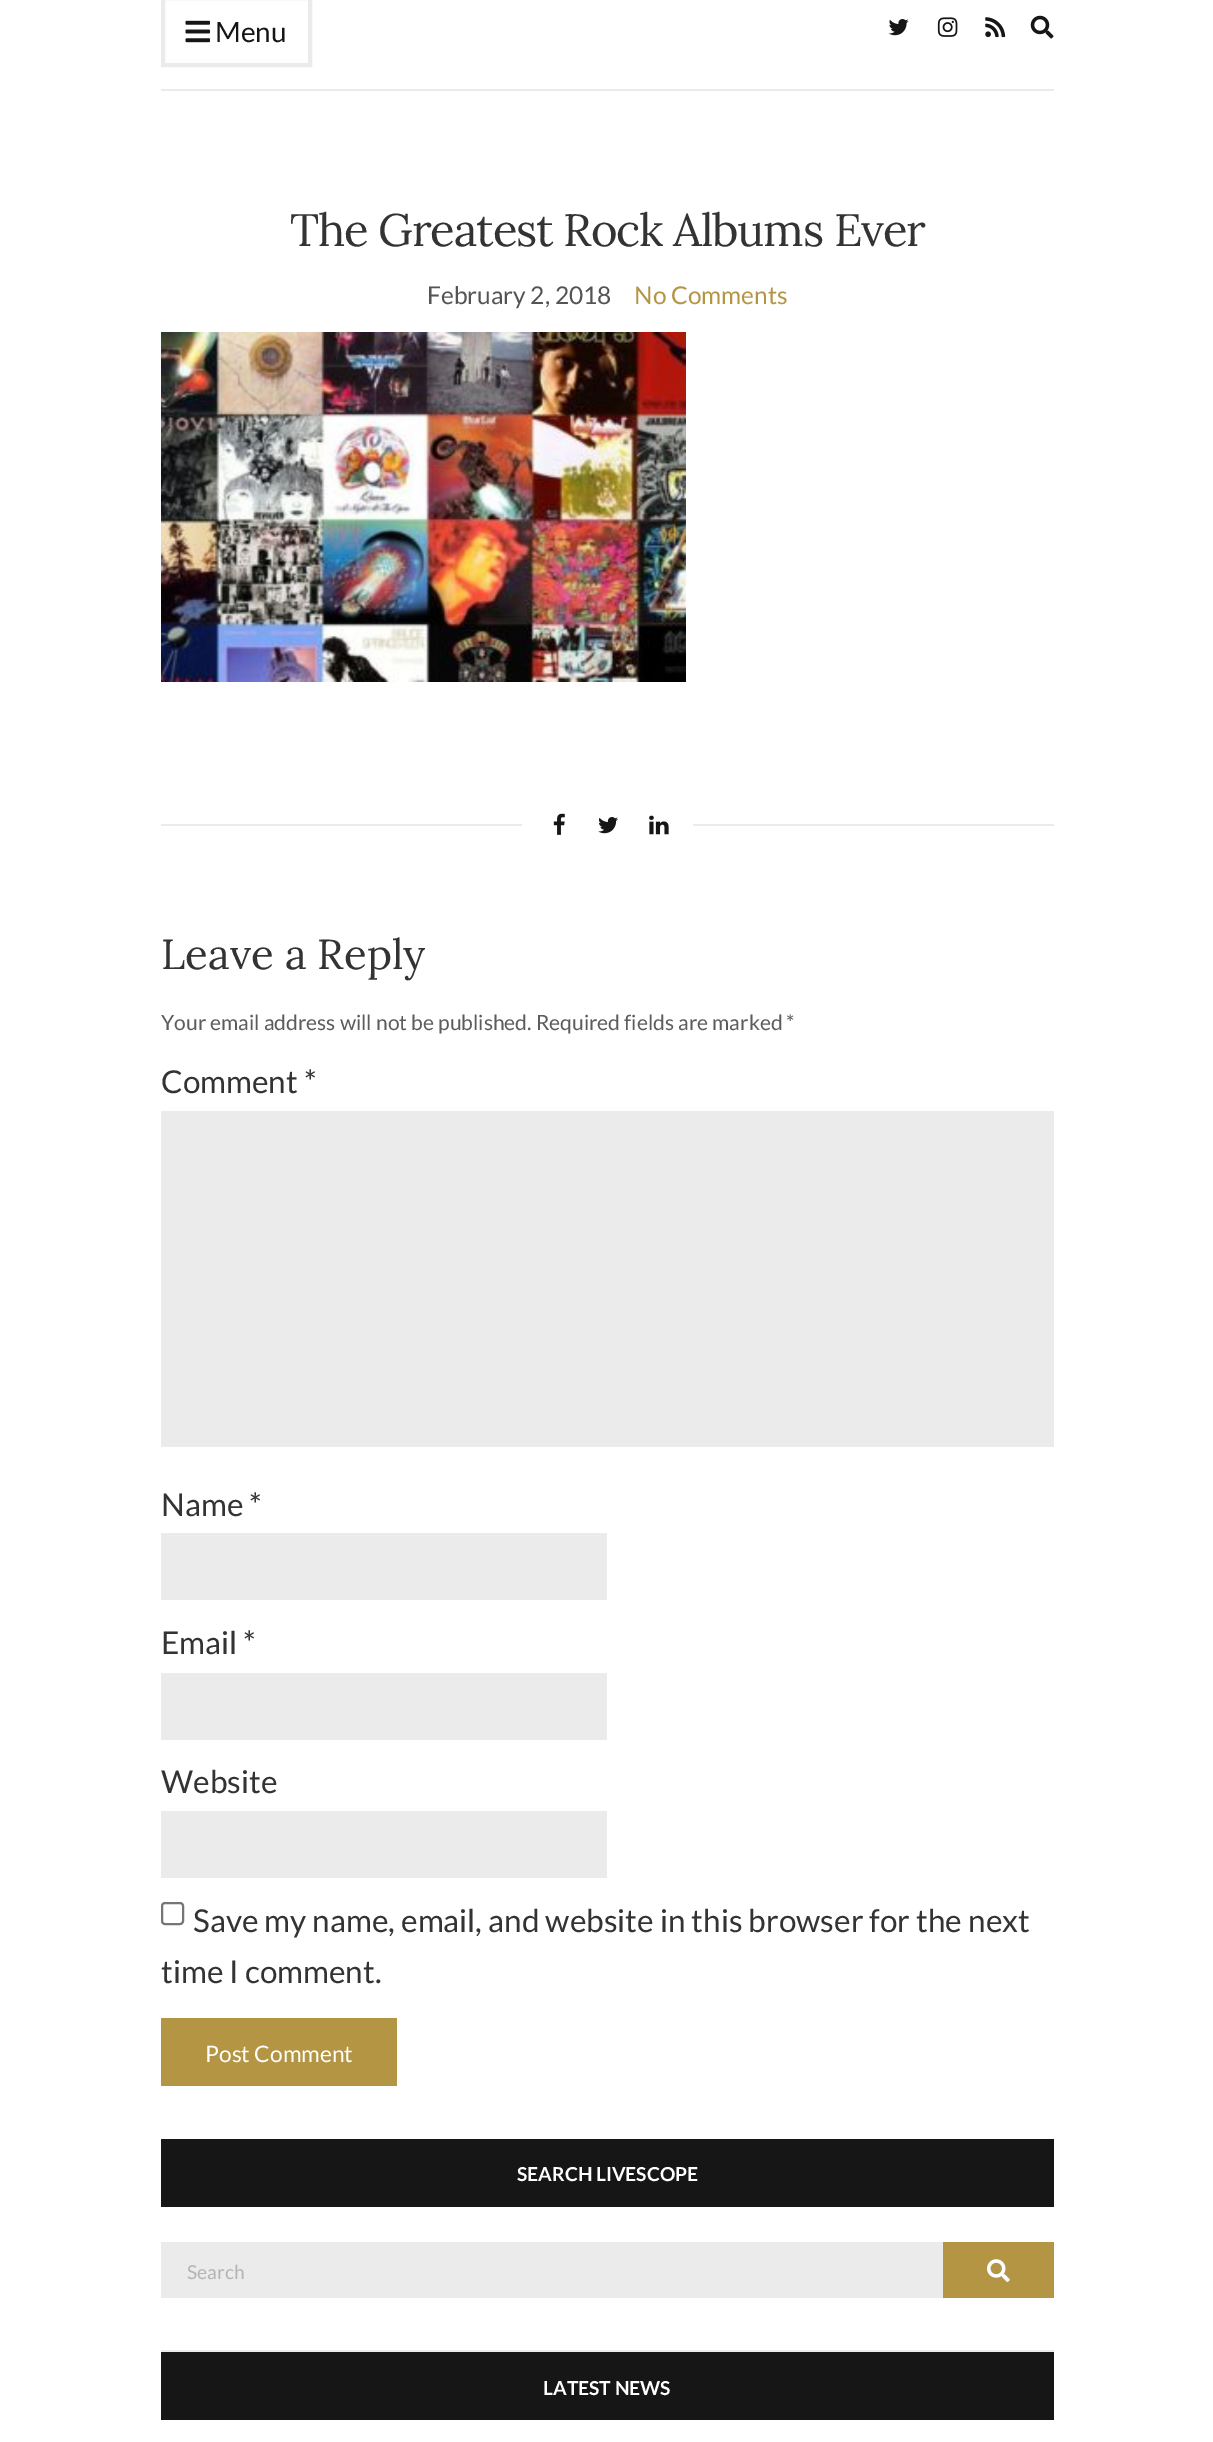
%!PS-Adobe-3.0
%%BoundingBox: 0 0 1213 2442
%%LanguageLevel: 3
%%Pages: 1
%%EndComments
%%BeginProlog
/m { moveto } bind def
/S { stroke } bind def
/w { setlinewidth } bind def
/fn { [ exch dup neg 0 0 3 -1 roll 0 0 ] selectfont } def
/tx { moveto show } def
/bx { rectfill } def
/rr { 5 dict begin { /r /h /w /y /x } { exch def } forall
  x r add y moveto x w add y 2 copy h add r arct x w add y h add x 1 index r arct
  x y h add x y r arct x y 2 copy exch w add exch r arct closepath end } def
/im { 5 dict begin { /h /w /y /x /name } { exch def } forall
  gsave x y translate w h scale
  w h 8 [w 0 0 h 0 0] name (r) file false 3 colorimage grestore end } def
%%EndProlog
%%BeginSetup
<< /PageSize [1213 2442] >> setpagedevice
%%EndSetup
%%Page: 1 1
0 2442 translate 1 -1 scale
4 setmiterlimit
1 setgray
0 0 1213 2442 bx
0.922 setgray
161 89 893 2 bx
4 w
163 -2 147 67 rectstroke
(image0.raw) 185 20 25 23 im
/Lato-Regular 28 fn
0.086 setgray
(Menu) 215 42 tx
(image1.raw) 888 19 21 17 im
(image2.raw) 937 17 21 20 im
(image3.raw) 985 17 21 21 im
(image4.raw) 1030 15 24 24 im
/Lora-Regular 45.5 fn
0.2 setgray
290 246 m -1.15 0 (The Greatest Rock Albums Ever) ashow
/Lato-Regular 24.5 fn
0.329 setgray
(February 2, 2018) 427 304 tx
0.706 0.584 0.263 setrgbcolor
(No Comments) 634 304 tx
(image5.raw) 161 332 525 350 im
0.922 setgray
161 824 893 2 bx
1 setgray
522 824 171 2 bx
(image6.raw) 553 813 12 22 im
(image7.raw) 598 817 20 17 im
(image8.raw) 649 815 20 20 im
/Lora-Regular 42 fn
0.2 setgray
(Leave a Reply) 161 969 tx
/Lato-Regular 21 fn
0.361 setgray
(Your email address will not be published. Required fields are marked *) 161 1030 tx
/Lato-Regular 31.5 fn
0.2 setgray
(Comment *) 161 1093 tx
0.922 setgray
161 1111 893 336 bx
0.2 setgray
(Name *) 161 1516 tx
0.922 setgray
161 1533 446 67 bx
0.2 setgray
(Email *) 161 1654 tx
0.922 setgray
161 1673 446 67 bx
0.2 setgray
(Website) 161 1793 tx
0.922 setgray
161 1811 446 67 bx
0.463 setgray
2 w
162 1903 21 21 3 rr S
0.2 setgray
(Save my name, email, and website in this browser for the next) 193 1932 tx
(time I comment.) 161 1983 tx
0.706 0.584 0.263 setrgbcolor
161 2018 236 68 bx
/Lato-Regular 22.75 fn
1 setgray
(Post Comment) 205 2062 tx
0.922 setgray
161 2350 893 2 bx
0.086 setgray
161 2139 893 68 bx
/Lato-Bold 19.25 fn
1 setgray
(SEARCH LIVESCOPE) 517 2181 tx
0.922 setgray
161 2242 782 56 bx
/Lato-Regular 19.25 fn
0.706 setgray
(Search) 187 2279 tx
0.706 0.584 0.263 setrgbcolor
943 2242 111 56 bx
(image9.raw) 987 2259 23 23 im
0.086 setgray
161 2352 893 68 bx
/Lato-Bold 19.25 fn
1 setgray
(LATEST NEWS) 543 2395 tx
showpage
%%EOF
